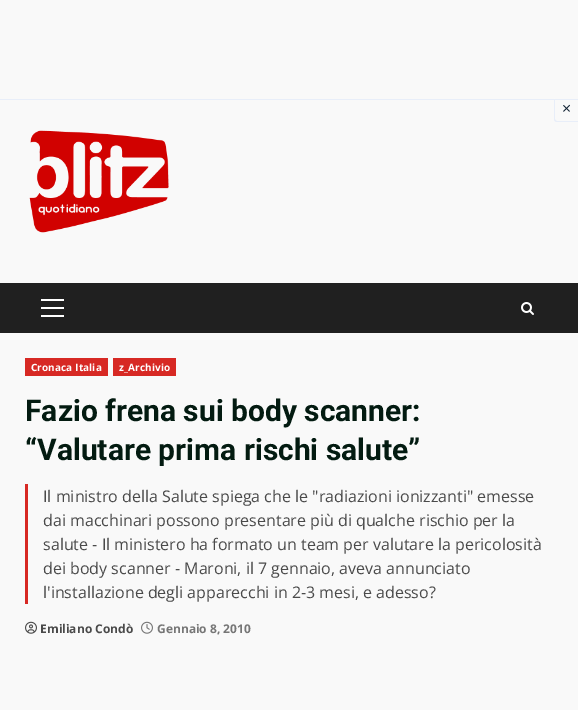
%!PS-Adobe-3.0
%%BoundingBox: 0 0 578 710
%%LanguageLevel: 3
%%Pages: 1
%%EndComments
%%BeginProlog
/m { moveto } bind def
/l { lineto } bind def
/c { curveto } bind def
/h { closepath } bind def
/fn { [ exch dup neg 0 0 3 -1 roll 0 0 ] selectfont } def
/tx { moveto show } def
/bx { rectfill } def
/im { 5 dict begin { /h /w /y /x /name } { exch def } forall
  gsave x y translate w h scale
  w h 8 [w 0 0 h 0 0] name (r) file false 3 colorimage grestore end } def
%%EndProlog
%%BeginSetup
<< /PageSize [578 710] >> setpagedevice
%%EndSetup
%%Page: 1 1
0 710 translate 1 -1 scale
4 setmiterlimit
0.976 setgray
0 0 578 710 bx
0.91 0.933 0.976 setrgbcolor
554 98 m 578 98 l 578 122 l 557 122 l 555.5 122 554 120.5 554 119 c h 555 98 m 578 98 l 578 121 l 557 121 l 556 121 555 120 555 119 c h eofill
0.98 setgray
554 98 1 1 bx
0.91 0.933 0.976 setrgbcolor
0 99 578 1 bx
/OpenSans-Regular 16 fn
0.067 0.133 0.2 setrgbcolor
(×) 562 114 tx
(image0.raw) 29 130 140 103 im
0.125 setgray
0 283 578 50 bx
1 setgray
41 307 23 2 bx
41 299 23 2 bx
41 315 23 2 bx
(image1.raw) 521 302 13 13 im
0.843 0.161 0.141 setrgbcolor
25 358 83 18 bx
/OpenSans-Bold 10 fn
1 setgray
31 371 m 0.1 0 (Cronaca Italia) ashow
0.843 0.161 0.141 setrgbcolor
113 358 63 18 bx
1 setgray
119 371 m 0.1 0 (z_Archivio) ashow
/Roboto-Bold 30 fn
0.012 0.106 0.067 setrgbcolor
(Fazio frena sui body scanner:) 25 421 tx
(“Valutare prima rischi salute”) 25 460 tx
0.843 0.161 0.141 setrgbcolor
25 484 3 120 bx
/OpenSans-Regular 16 fn
0.29 setgray
(Il ministro della Salute spiega che le "radiazioni ionizzanti" emesse) 43 502 tx
(dai macchinari possono presentare più di qualche rischio per la) 43 526 tx
(salute - Il ministero ha formato un team per valutare la pericolosità) 43 550 tx
(dei body scanner - Maroni, il 7 gennaio, aveva annunciato) 43 574 tx
(l'installazione degli apparecchi in 2-3 mesi, e adesso?) 43 598 tx
(image2.raw) 25 621 12 13 im
/OpenSans-Bold 12 fn
(Emiliano Condò) 40 633 tx
(image3.raw) 141 621 12 13 im
0.463 setgray
(Gennaio 8, 2010) 157 633 tx
showpage
%%EOF
